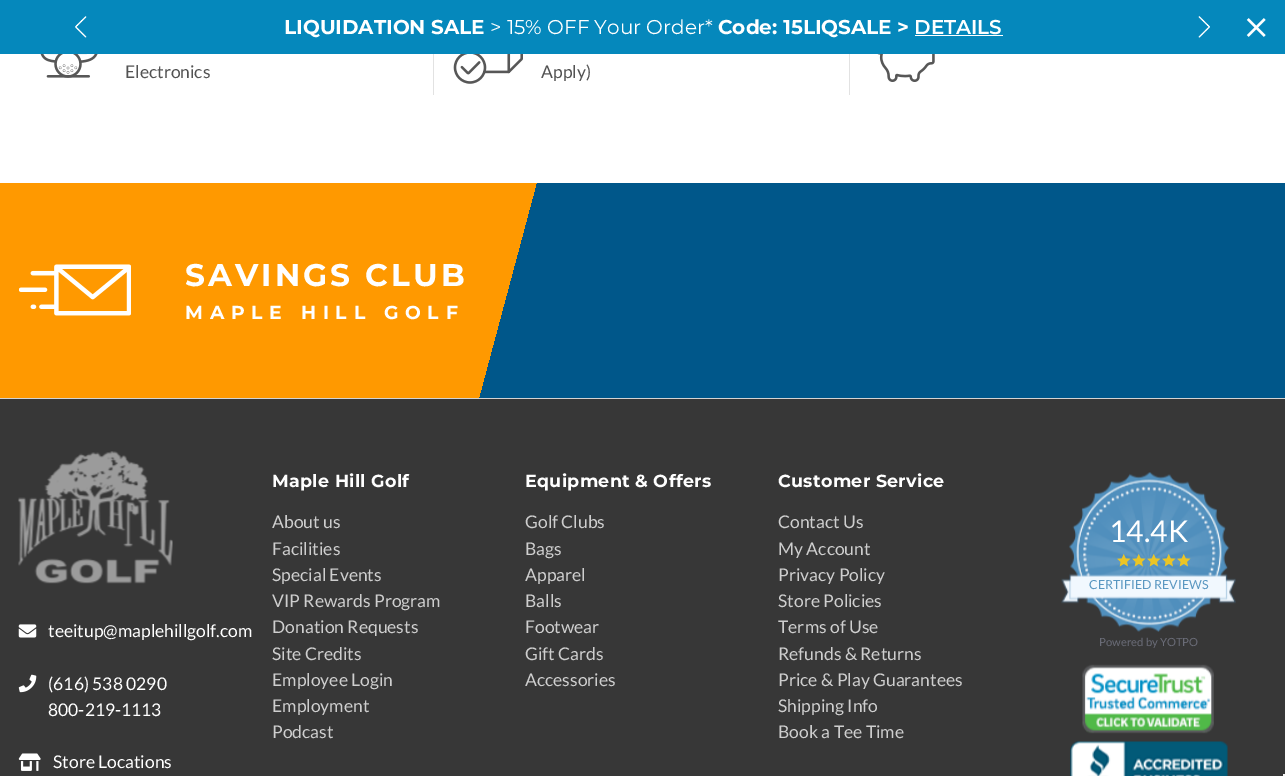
%!PS-Adobe-3.0
%%BoundingBox: 0 0 1285 776
%%LanguageLevel: 3
%%Pages: 1
%%EndComments
%%BeginProlog
/m { moveto } bind def
/l { lineto } bind def
/h { closepath } bind def
/q { gsave } bind def
/Q { grestore } bind def
/fn { [ exch dup neg 0 0 3 -1 roll 0 0 ] selectfont } def
/tx { moveto show } def
/bx { rectfill } def
/im { 5 dict begin { /h /w /y /x /name } { exch def } forall
  gsave x y translate w h scale
  w h 8 [w 0 0 h 0 0] name (r) file false 3 colorimage grestore end } def
%%EndProlog
%%BeginSetup
<< /PageSize [1285 776] >> setpagedevice
%%EndSetup
%%Page: 1 1
0 776 translate 1 -1 scale
4 setmiterlimit
1 setgray
0 0 1285 776 bx
0.02 0.533 0.737 setrgbcolor
0 0 1285 54 bx
(image0.raw) 75 16 12 22 im
/Montserrat-Bold 20 fn
1 setgray
(LIQUIDATION SALE) 284 34 tx
/Montserrat-Regular 20 fn
(> 15% OFF Your Order*) 490 34 tx
/Montserrat-Bold 20 fn
(Code: 15LIQSALE >) 718 34 tx
/Montserrat-SemiBold 20 fn
(DETAILS) 914 34 tx
915 35 88 1 bx
(image1.raw) 1198 16 12 22 im
(image2.raw) 1246 18 20 19 im
0.886 setgray
433 54 1 41 bx
(image3.raw) 40 54 58 24 im
/Lato-Regular 17.5 fn
0.325 setgray
(Electronics) 125 78 tx
0.886 setgray
849 54 1 41 bx
(image4.raw) 453 54 70 30 im
0.325 setgray
(Apply\)) 541 78 tx
(image5.raw) 877 54 58 28 im
q 0 183 m 1285 183 l 1285 398 l 0 398 l h clip newpath
<< /ShadingType 2 /ColorSpace /DeviceRGB /Coords [16 122 1269 458] /Extend [true true] /Function << /FunctionType 3 /Domain [0 1] /Functions [<< /FunctionType 2 /Domain [0 1] /C0 [1 0.6 0] /C1 [1 0.6 0] /N 1 >> << /FunctionType 2 /Domain [0 1] /C0 [0 0.341 0.541] /C1 [0 0.341 0.541] /N 1 >>] /Bounds [0.4] /Encode [0 1 0 1] >> >> shfill Q
(image6.raw) 19 264 112 52 im
/Montserrat-Bold 31.25 fn
1 setgray
185 286 m 3.1 0 (SAVINGS CLUB) ashow
/Montserrat-Bold 18.75 fn
185 319 m 6.75 0 (MAPLE HILL GOLF) ashow
0.216 setgray
0 399 1285 377 bx
0.827 setgray
0 398 1285 1 bx
/Montserrat-Bold 17.5 fn
1 setgray
272 487 m 0.3 0 (Maple Hill Golf) ashow
/Lato-Regular 17.5 fn
0.808 setgray
(About us) 272 528 tx
(Facilities) 272 555 tx
(Special Events) 272 581 tx
(VIP Rewards Program) 272 607 tx
(Donation Requests) 272 633 tx
(Site Credits) 272 660 tx
(Employee Login) 272 686 tx
(Employment) 272 712 tx
(Podcast) 272 738 tx
/Montserrat-Bold 17.5 fn
1 setgray
525 487 m 0.3 0 (Equipment & Offers) ashow
/Lato-Regular 17.5 fn
0.808 setgray
(Golf Clubs) 525 528 tx
(Bags) 525 555 tx
(Apparel) 525 581 tx
(Balls) 525 607 tx
(Footwear) 525 633 tx
(Gift Cards) 525 660 tx
(Accessories) 525 686 tx
/Montserrat-Bold 17.5 fn
1 setgray
778 487 m 0.3 0 (Customer Service) ashow
/Lato-Regular 17.5 fn
0.808 setgray
(Contact Us) 778 528 tx
(My Account) 778 555 tx
(Privacy Policy) 778 581 tx
(Store Policies) 778 607 tx
(Terms of Use) 778 633 tx
(Refunds & Returns) 778 660 tx
(Price & Play Guarantees) 778 686 tx
(Shipping Info) 778 712 tx
(Book a Tee Time) 778 738 tx
(image7.raw) 1061 472 175 160 im
/Lato-Regular 30 fn
1 setgray
(14.4K) 1109 542 tx
(image8.raw) 1117 554 14 13 im
(image9.raw) 1132 554 14 13 im
(image10.raw) 1147 554 14 13 im
(image11.raw) 1162 554 14 13 im
(image12.raw) 1177 554 14 13 im
/Lato-Regular 12.5 fn
0.349 0.592 0.757 setrgbcolor
(CERTIFIED REVIEWS) 1089 589 tx
/Lato-Regular 11.25 fn
0.416 0.424 0.467 setrgbcolor
(Powered by YOTPO) 1099 646 tx
(image13.raw) 1082 664 132 70 im
(image14.raw) 1070 741 158 35 im
(image15.raw) 18 451 155 133 im
(image16.raw) 18 624 19 14 im
/Lato-Regular 17.5 fn
1 setgray
(teeitup@maplehillgolf.com) 48 637 tx
(image17.raw) 18 674 19 19 im
(\(616\) 538 0290) 48 690 tx
(800-219-1113) 48 716 tx
(image18.raw) 18 753 23 18 im
(Store Locations) 53 768 tx
0.961 setgray
1283 774 2 2 bx
showpage
%%EOF
